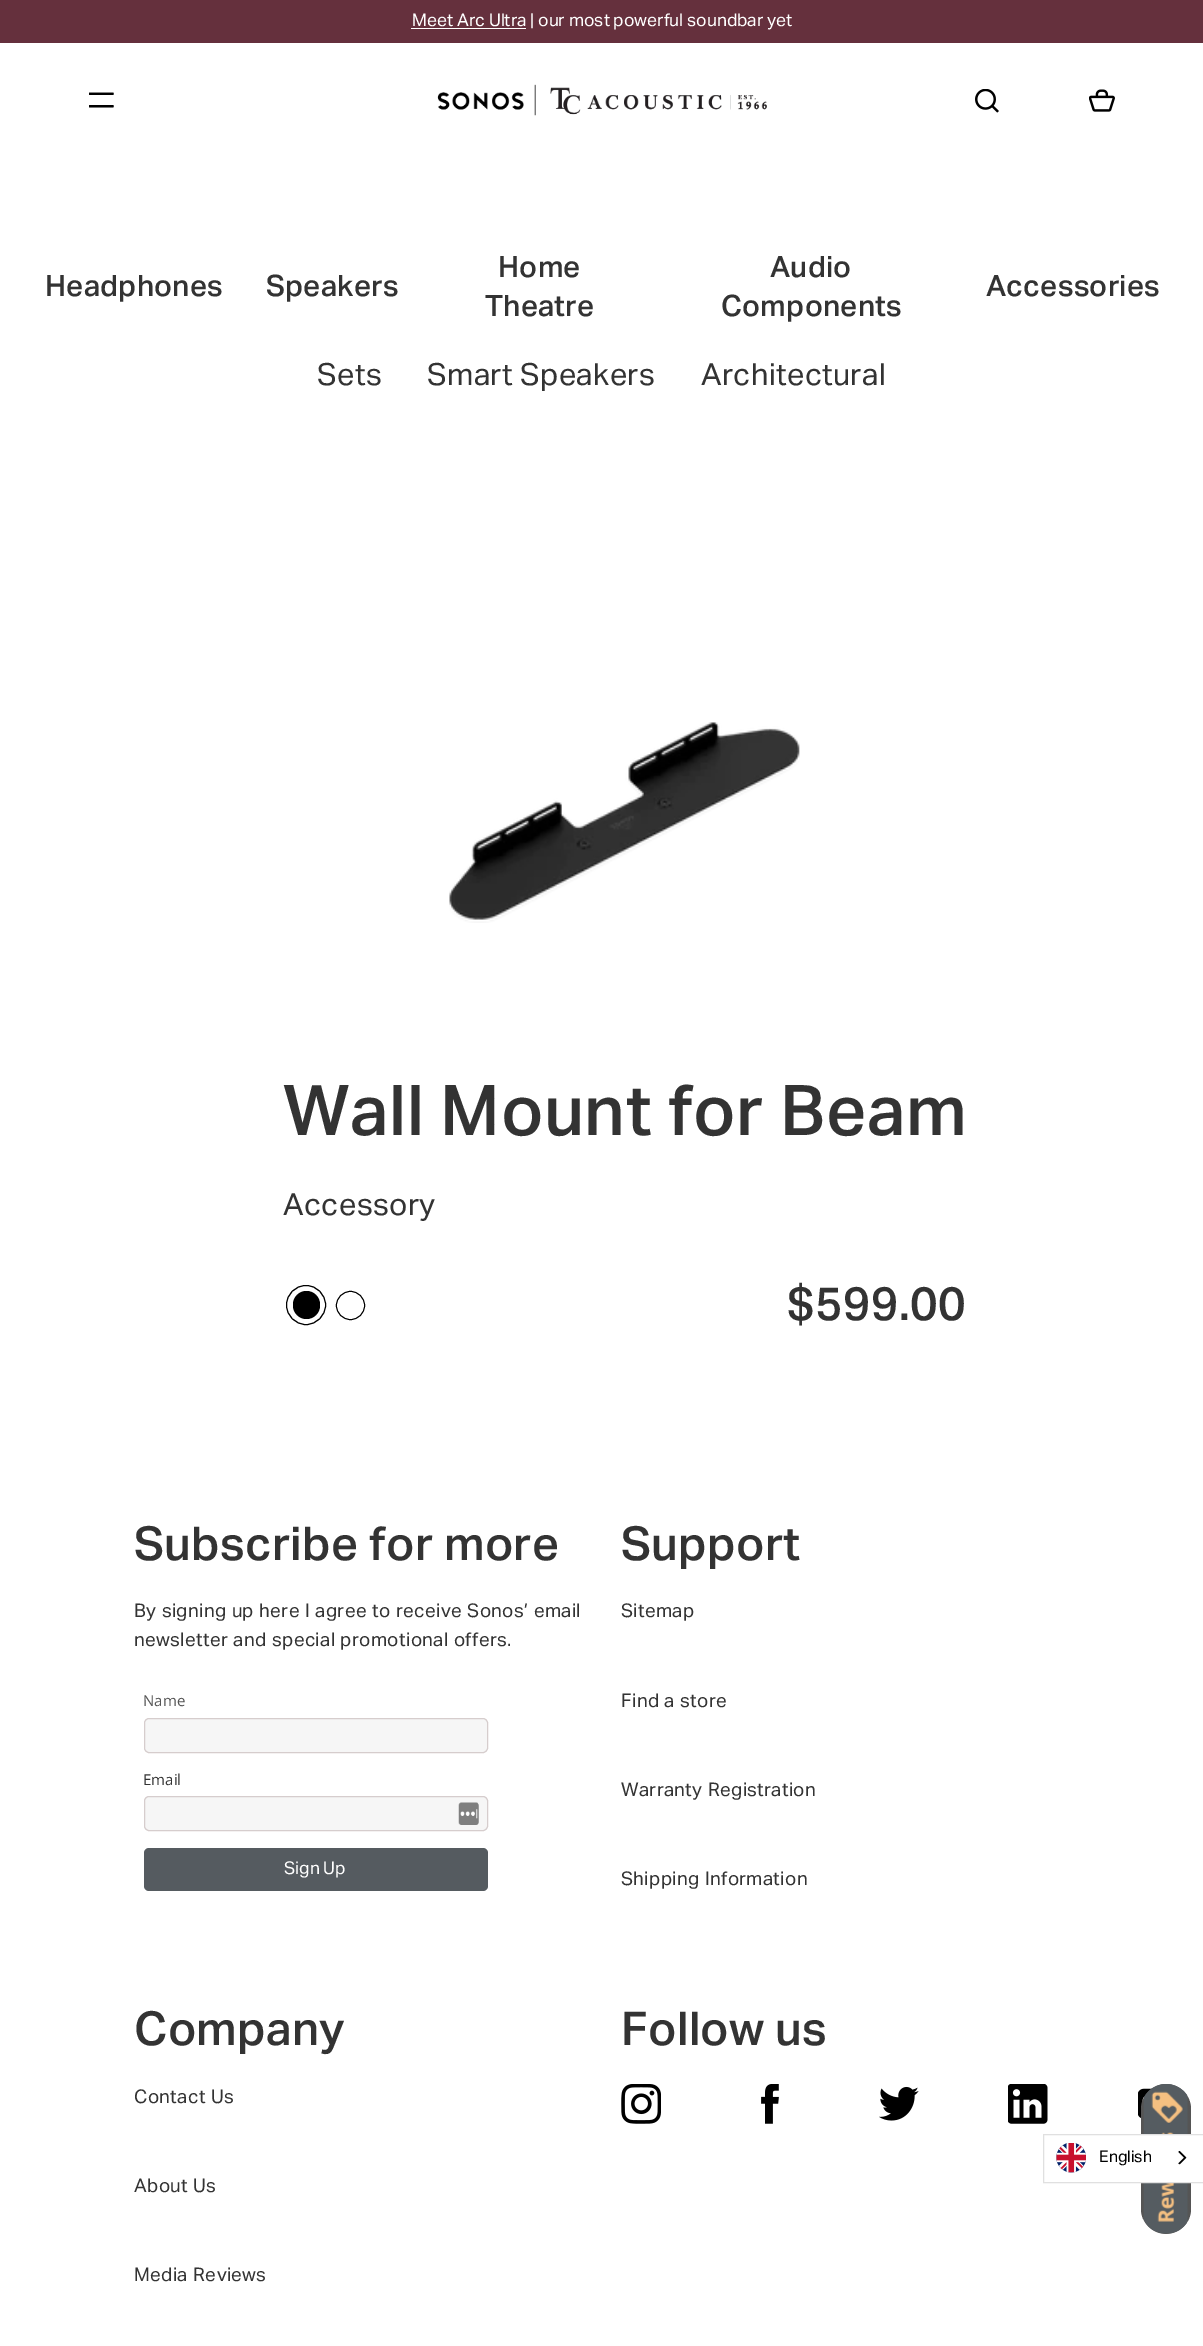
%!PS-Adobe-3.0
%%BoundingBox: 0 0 1203 2346
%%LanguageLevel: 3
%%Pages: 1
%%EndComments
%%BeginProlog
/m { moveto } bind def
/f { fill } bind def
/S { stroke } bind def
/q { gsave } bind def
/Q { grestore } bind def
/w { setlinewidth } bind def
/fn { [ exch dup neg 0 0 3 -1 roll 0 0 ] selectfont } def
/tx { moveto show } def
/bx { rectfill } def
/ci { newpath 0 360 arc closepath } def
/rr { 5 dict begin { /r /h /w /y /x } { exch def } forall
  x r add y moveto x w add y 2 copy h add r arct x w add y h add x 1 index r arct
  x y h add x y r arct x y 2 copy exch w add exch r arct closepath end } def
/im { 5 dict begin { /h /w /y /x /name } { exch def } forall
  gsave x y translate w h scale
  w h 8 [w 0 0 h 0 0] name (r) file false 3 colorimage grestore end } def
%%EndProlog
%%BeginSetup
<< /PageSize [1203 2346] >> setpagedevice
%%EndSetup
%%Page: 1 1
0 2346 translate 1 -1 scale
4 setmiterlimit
1 setgray
0 0 1203 2346 bx
0.396 0.188 0.239 setrgbcolor
0 0 1203 43 bx
1 setgray
411 28 115 1 bx
/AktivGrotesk-Regular 17.5 fn
(Meet Arc Ultra | our most powerful soundbar yet) 412 26 tx
(image0.raw) 89 92 25 16 im
(image1.raw) 437 84 330 32 im
(image2.raw) 975 89 24 24 im
(image3.raw) 1089 89 26 23 im
/AktivGrotesk-Medium 29.5 fn
0.2 setgray
45 296 m 0.25 0 (Headphones) ashow
266 296 m 0.25 0 (Speakers) ashow
498 277 m 0.25 0 (Home) ashow
485 316 m 0.25 0 (Theatre) ashow
770 277 m 0.25 0 (Audio) ashow
721 316 m 0.25 0 (Components) ashow
986 296 m 0.25 0 (Accessories) ashow
/AktivGrotesk-Regular 30.5 fn
317 385 m 0.38 0 (Sets) ashow
427 385 m 0.38 0 (Smart Speakers) ashow
701 385 m 0.38 0 (Architectural) ashow
(image4.raw) 449 722 351 201 im
/AktivGrotesk-Medium 70 fn
283 1135 m 0.5 0 (Wall Mount for Beam) ashow
/AktivGrotesk-Regular 30.5 fn
283 1215 m 0.38 0 (Accessory) ashow
0 setgray
293 1291 27 28 13.5 rr f
306 1305 19.5 ci S
0.9 w
350.5 1305.5 14.05 ci S
/AktivGrotesk-Medium 46.75 fn
0.2 setgray
787 1320 m 0.25 0 ($599.00) ashow
134 1560 m 0.25 0 (Subscribe for more) ashow
/AktivGrotesk-Regular 18.75 fn
134 1617 m 0.75 0 32 0.38 0 (By signing up here I agree to receive Sonos’ email) awidthshow
134 1646 m 0.75 0 32 0.38 0 (newsletter and special promotional offers.) awidthshow
/OpenSans-Regular 15 fn
0.333 setgray
(Name) 143 1706 tx
0.965 setgray
144.5 1718.5 343 34 4.5 rr q f Q
0.839 0.804 0.804 setrgbcolor
1 w
S
0.2 setgray
(Email) 143 1785 tx
0.965 setgray
144 1796 344 35 5 rr f
(image5.raw) 458 1802 21 23 im
0.839 0.804 0.804 setrgbcolor
144.5 1796.5 343 34 4.5 rr S
0.333 0.357 0.376 setrgbcolor
144 1848 344 43 5 rr f
/AktivGrotesk-Regular 17.5 fn
1 setgray
(Sign Up) 284 1874 tx
/AktivGrotesk-Medium 46.75 fn
0.2 setgray
621 1560 m 0.25 0 (Support) ashow
/AktivGrotesk-Regular 18.75 fn
621 1617 m 0.38 0 (Sitemap) ashow
621 1707 m 0.75 0 32 0.38 0 (Find a store) awidthshow
621 1796 m 0.75 0 32 0.38 0 (Warranty Registration) awidthshow
621 1885 m 0.75 0 32 0.38 0 (Shipping Information) awidthshow
/AktivGrotesk-Medium 46.75 fn
134 2045 m 0.25 0 (Company) ashow
/AktivGrotesk-Regular 18.75 fn
134 2103 m 0.75 0 32 0.38 0 (Contact Us) awidthshow
134 2192 m 0.75 0 32 0.38 0 (About Us) awidthshow
134 2281 m 0.75 0 32 0.38 0 (Media Reviews) awidthshow
/AktivGrotesk-Medium 46.75 fn
621 2045 m 0.25 0 (Follow us) ashow
(image6.raw) 621 2084 40 40 im
(image7.raw) 761 2084 18 40 im
(image8.raw) 879 2086 40 35 im
(image9.raw) 1008 2084 40 40 im
(image10.raw) 1138 2088 15 30 im
0.333 setgray
1141 2084 50 150 25 rr f
(image13.raw) 1143 2084 45 150 im
1 setgray
1141 2135 50 47 bx
0.878 setgray
1043.5 2134.5 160 48 rectstroke
(image11.raw) 1056 2143 30 30 im
/AktivGrotesk-Regular 16 fn
0 setgray
(English) 1099 2162 tx
(image12.raw) 1178 2150 9 15 im
showpage
%%EOF
